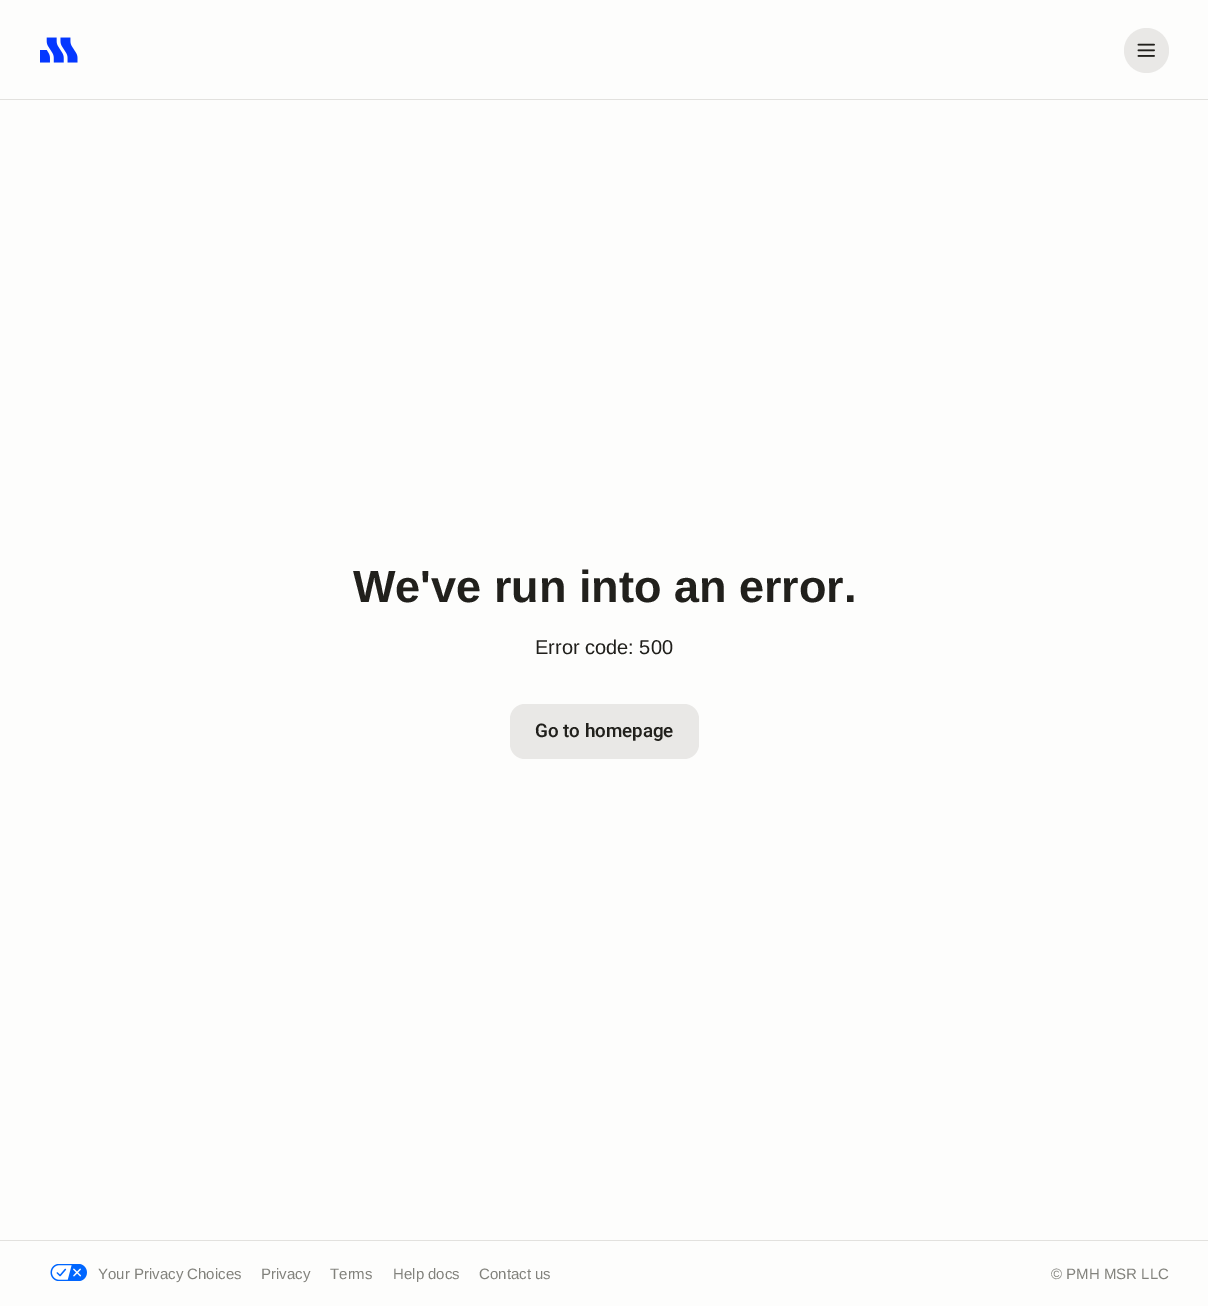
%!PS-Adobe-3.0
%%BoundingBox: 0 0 1208 1306
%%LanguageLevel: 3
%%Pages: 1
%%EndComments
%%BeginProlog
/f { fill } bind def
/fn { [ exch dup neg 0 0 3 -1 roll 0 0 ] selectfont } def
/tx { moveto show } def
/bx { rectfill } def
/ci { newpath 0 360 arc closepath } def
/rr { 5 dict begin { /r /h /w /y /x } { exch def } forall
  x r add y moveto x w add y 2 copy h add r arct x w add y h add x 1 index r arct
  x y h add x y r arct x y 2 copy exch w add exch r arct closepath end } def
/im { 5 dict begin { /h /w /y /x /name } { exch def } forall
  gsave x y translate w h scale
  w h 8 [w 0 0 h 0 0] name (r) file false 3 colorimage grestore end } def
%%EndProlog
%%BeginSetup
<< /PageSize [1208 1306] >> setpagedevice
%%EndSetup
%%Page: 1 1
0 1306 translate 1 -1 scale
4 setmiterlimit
0.992 0.992 0.988 setrgbcolor
0 0 1208 1306 bx
0.886 0.882 0.871 setrgbcolor
0 99 1208 1 bx
(image0.raw) 40 37 38 26 im
0.914 0.91 0.902 setrgbcolor
1146.5 50.5 22.5 ci f
(image1.raw) 1137 43 18 14 im
/LiberationSans-Bold 45 fn
0.129 0.125 0.11 setrgbcolor
(We've run into an error.) 353 602 tx
/LiberationSans-Regular 20 fn
(Error code: 500) 535 654 tx
0.914 0.91 0.902 setrgbcolor
510 704 189 55 15 rr f
/Roboto-Medium 18.75 fn
0.129 0.125 0.11 setrgbcolor
(Go to homepage) 535 737 tx
0.886 0.882 0.871 setrgbcolor
0 1240 1208 1 bx
(image2.raw) 50 1264 37 17 im
/LiberationSans-Regular 15 fn
0.51 0.51 0.486 setrgbcolor
(Your Privacy Choices) 98 1279 tx
(Privacy) 261 1279 tx
(Terms) 330 1279 tx
(Help docs) 393 1279 tx
(Contact us) 479 1279 tx
(© PMH MSR LLC) 1051 1279 tx
showpage
%%EOF
